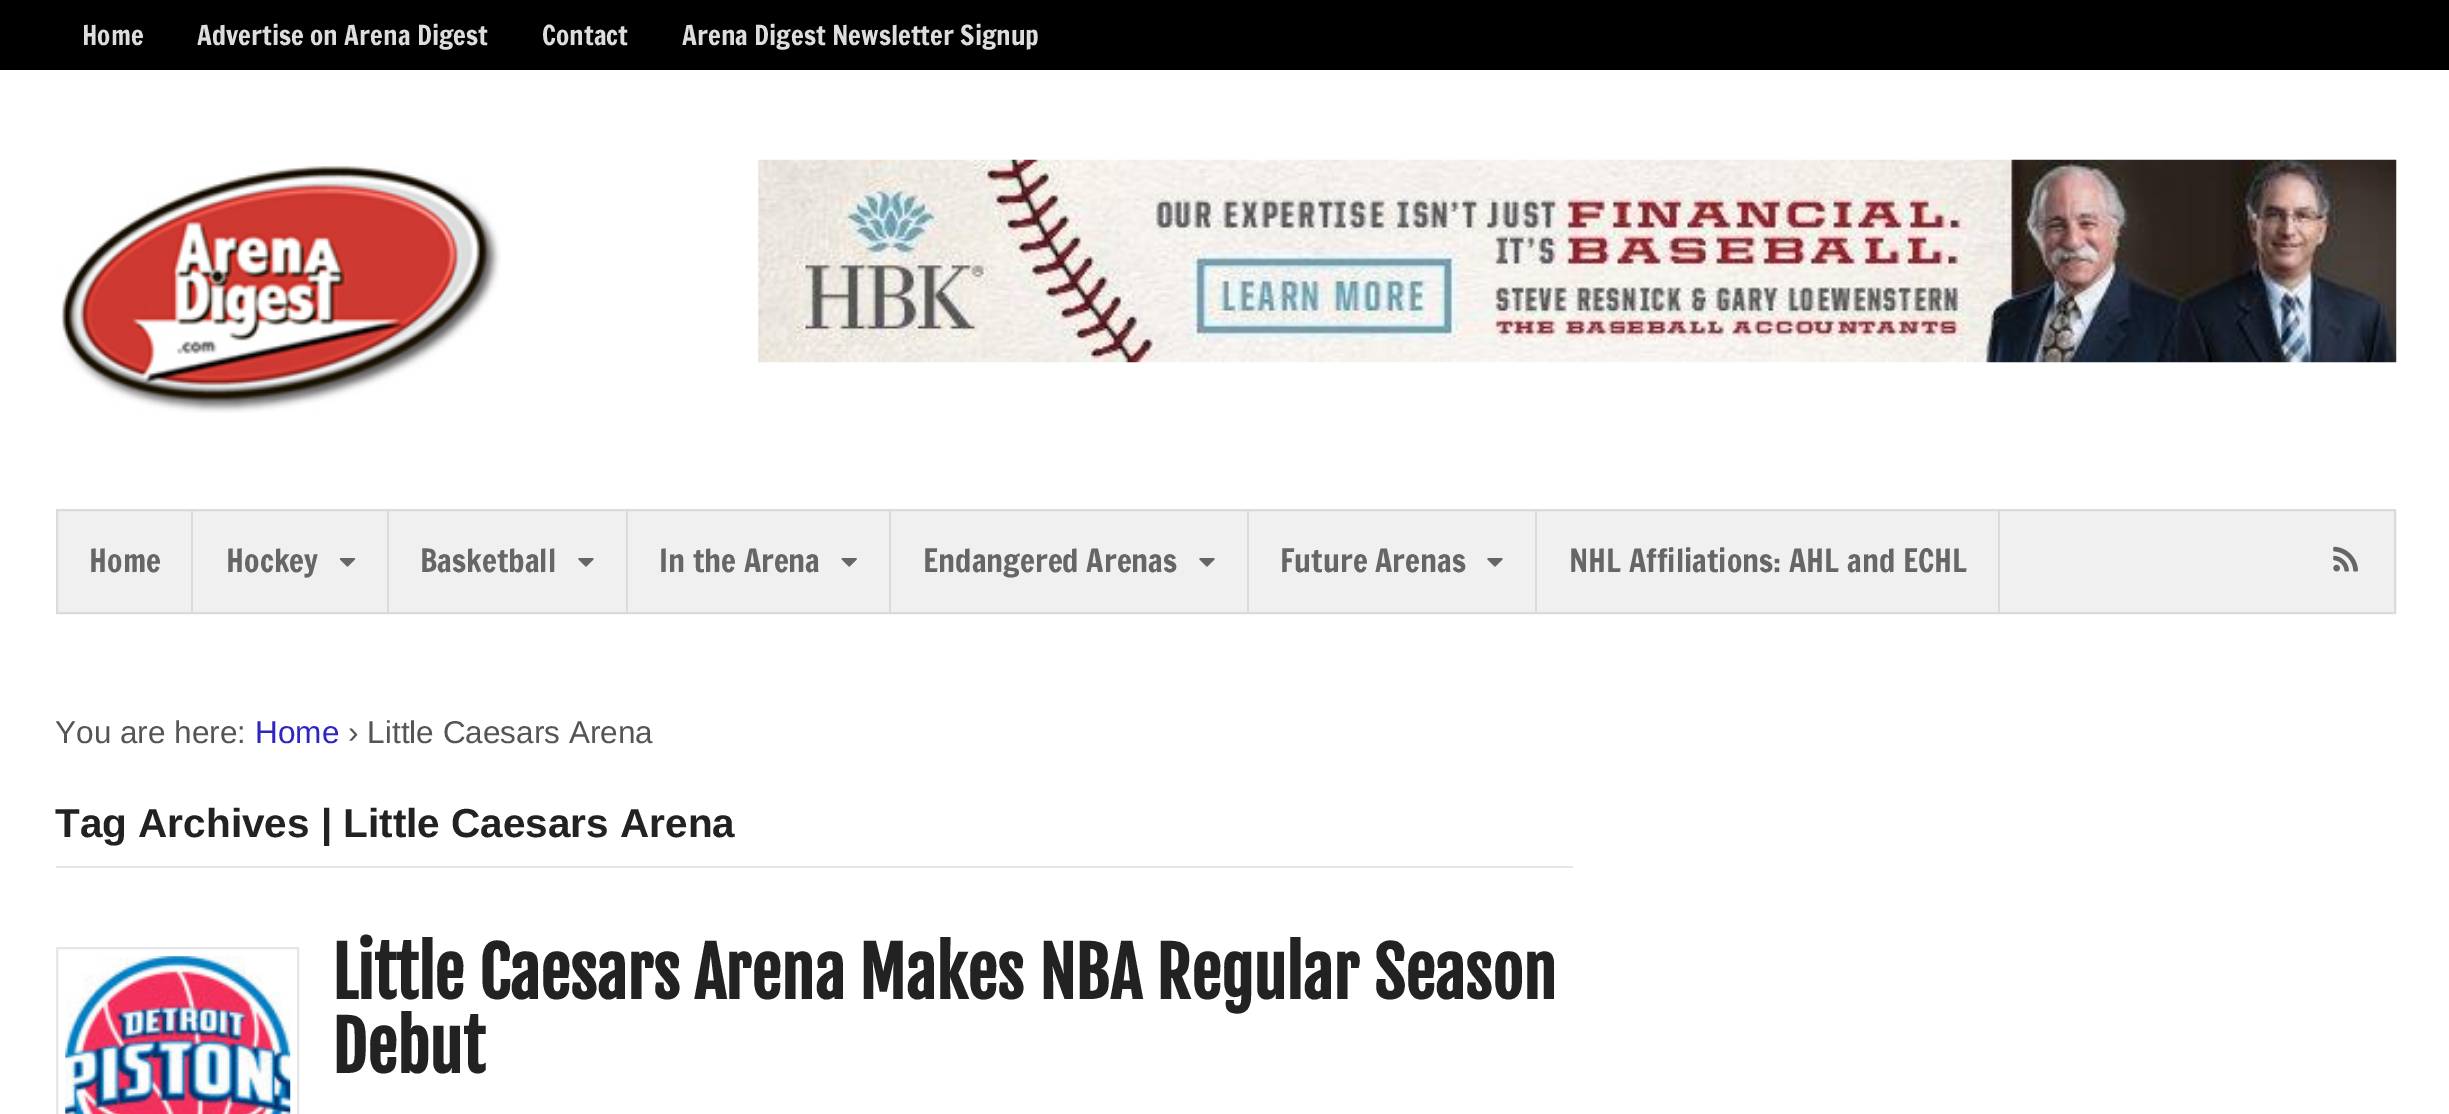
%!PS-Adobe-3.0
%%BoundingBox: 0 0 2449 1114
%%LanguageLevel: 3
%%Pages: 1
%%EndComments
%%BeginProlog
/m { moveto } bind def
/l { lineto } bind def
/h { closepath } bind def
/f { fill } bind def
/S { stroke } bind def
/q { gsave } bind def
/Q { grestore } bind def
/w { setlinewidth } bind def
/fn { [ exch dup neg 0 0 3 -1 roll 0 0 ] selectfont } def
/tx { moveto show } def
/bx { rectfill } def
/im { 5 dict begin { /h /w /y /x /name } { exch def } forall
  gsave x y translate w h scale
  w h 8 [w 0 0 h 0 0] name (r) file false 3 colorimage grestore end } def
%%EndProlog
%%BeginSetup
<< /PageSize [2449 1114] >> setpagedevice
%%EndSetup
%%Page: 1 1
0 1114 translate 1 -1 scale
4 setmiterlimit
1 setgray
0 0 2449 1114 bx
0 setgray
0 0 2449 70 bx
/FrancoisOne-Regular 27 fn
0.867 setgray
(Home) 82 45 tx
(Advertise on Arena Digest) 197 45 tx
(Contact) 542 45 tx
(Arena Digest Newsletter Signup) 682 45 tx
(image0.raw) 60 166 441 247 im
(image1.raw) 758 159 1639 204 im
0.941 setgray
57 510 m 2395 510 l 2395 613 l 57 613 l h q f Q
0.859 setgray
2 w
S
191 511 2 101 bx
/FrancoisOne-Regular 31.5 fn
0.4 setgray
(Home) 89 572 tx
0.859 setgray
387 511 2 101 bx
0.4 setgray
(Hockey) 226 572 tx
(image2.raw) 339 558 17 9 im
0.859 setgray
626 511 2 101 bx
0.4 setgray
(Basketball) 420 572 tx
(image3.raw) 578 558 16 9 im
0.859 setgray
889 511 2 101 bx
0.4 setgray
(In the Arena) 659 572 tx
(image4.raw) 841 558 16 9 im
0.859 setgray
1247 511 2 101 bx
0.4 setgray
(Endangered Arenas) 923 572 tx
(image3.raw) 1199 558 16 9 im
0.859 setgray
1535 511 2 101 bx
0.4 setgray
(Future Arenas) 1280 572 tx
(image3.raw) 1487 558 16 9 im
0.859 setgray
1998 511 2 101 bx
0.4 setgray
(NHL Affiliations: AHL and ECHL) 1569 572 tx
(image5.raw) 2333 546 25 26 im
/LiberationSans-Regular 31.5 fn
0.333 setgray
(You are here:) 55 743 tx
0.18 0.149 0.749 setrgbcolor
(Home) 255 743 tx
0.333 setgray
(› Little Caesars Arena) 348 743 tx
0.902 setgray
56 866 1517 2 bx
/LiberationSans-Bold 40.5 fn
0.133 setgray
(Tag Archives | Little Caesars Arena) 55 837 tx
0.902 setgray
57 948 241 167 rectstroke
(image6.raw) 65 956 226 158 im
/FjallaOne-Bold 67.5 fn
0.133 setgray
(Little Caesars Arena Makes NBA Regular Season) 332 999 tx
(Debut) 332 1073 tx
showpage
%%EOF
